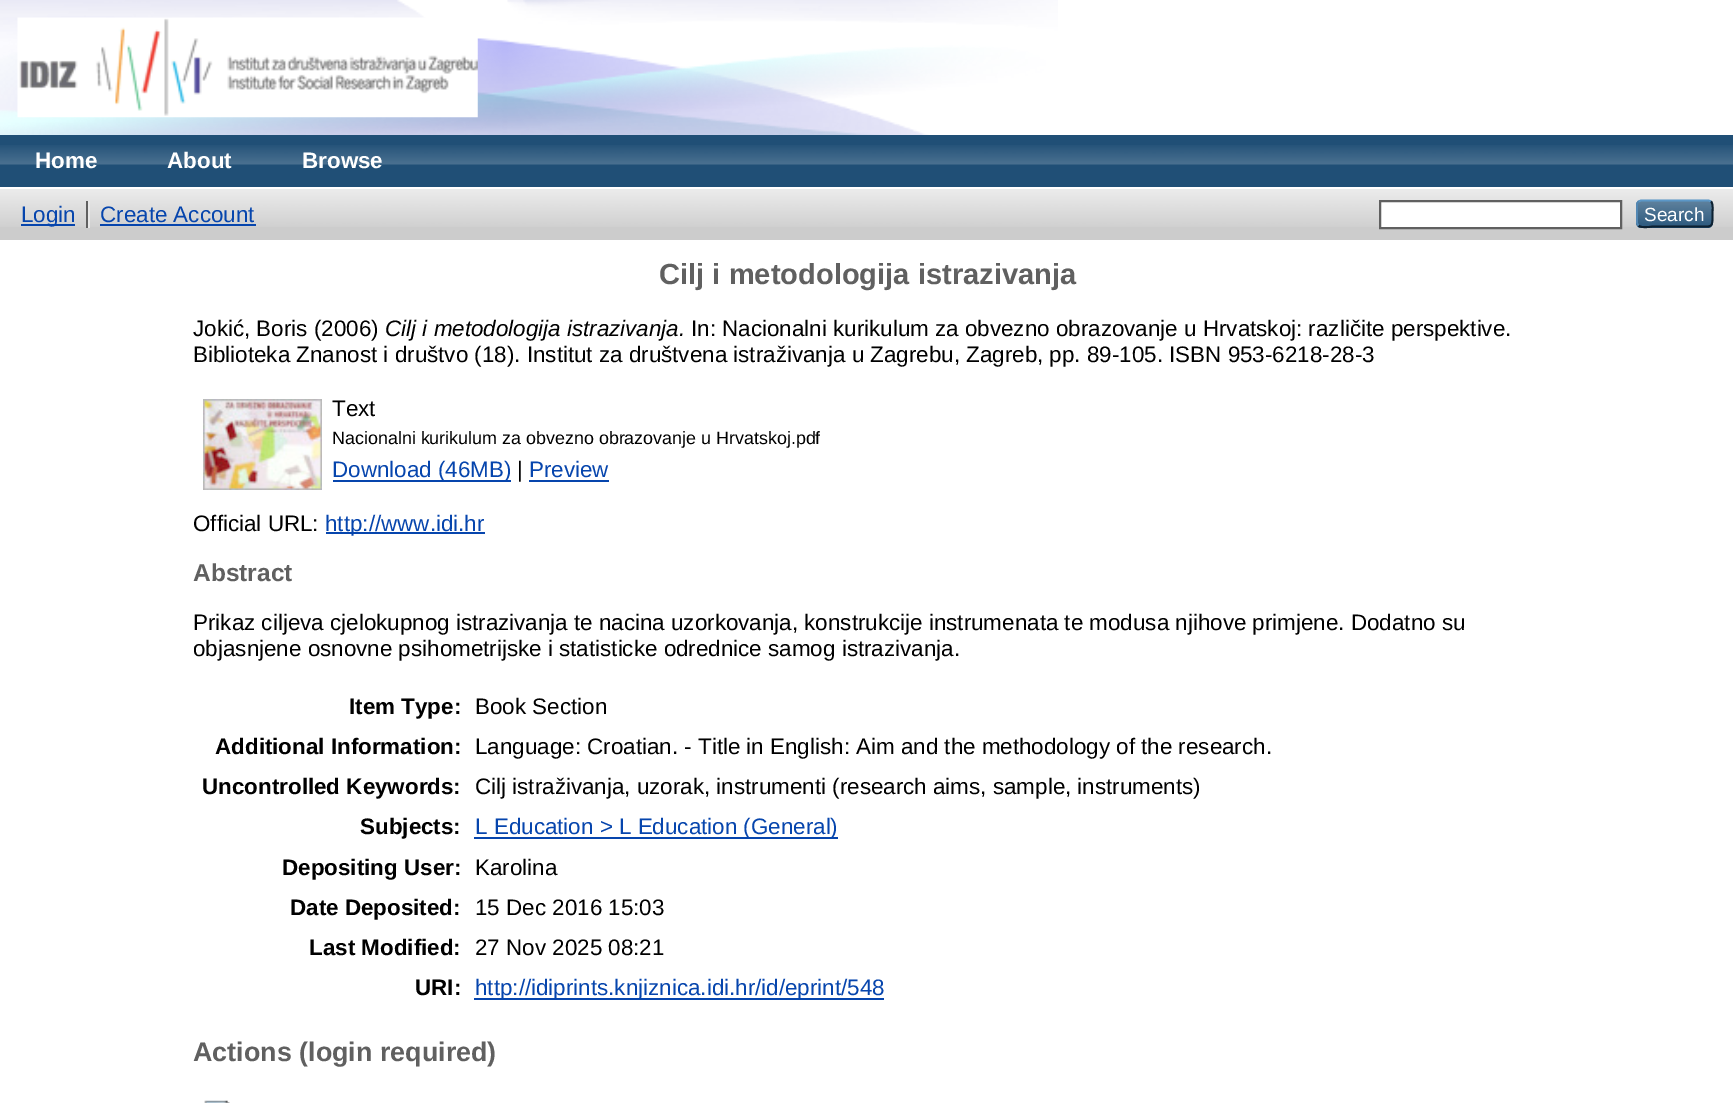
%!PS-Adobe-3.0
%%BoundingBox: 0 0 1733 1103
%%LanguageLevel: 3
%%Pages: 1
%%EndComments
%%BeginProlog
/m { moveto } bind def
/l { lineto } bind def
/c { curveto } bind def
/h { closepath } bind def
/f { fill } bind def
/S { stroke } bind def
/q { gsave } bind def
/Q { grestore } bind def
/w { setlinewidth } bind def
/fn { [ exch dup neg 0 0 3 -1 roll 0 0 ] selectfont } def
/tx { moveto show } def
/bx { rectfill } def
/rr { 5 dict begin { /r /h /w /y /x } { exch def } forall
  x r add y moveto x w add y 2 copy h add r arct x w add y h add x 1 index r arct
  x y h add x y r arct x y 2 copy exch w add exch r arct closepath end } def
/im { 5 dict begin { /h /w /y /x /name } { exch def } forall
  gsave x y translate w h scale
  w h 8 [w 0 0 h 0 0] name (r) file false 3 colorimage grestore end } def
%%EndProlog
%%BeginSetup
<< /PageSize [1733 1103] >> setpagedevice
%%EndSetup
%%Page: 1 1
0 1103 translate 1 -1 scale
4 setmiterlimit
1 setgray
0 0 1733 1103 bx
(image0.raw) 0 0 1058 135 im
(image1.raw) 17 17 461 101 im
0.125 0.31 0.463 setrgbcolor
0 135 1733 52 bx
(image2.raw) 0 145 1733 20 im
/LiberationSans-Bold 22.4 fn
1 setgray
(Home) 35 168 tx
(About) 167 168 tx
(Browse) 302 168 tx
0.8 setgray
0 189 1733 51 bx
(image3.raw) 0 189 1733 38 im
0.024 0.271 0.678 setrgbcolor
21 224 54 2 bx
/LiberationSans-Regular 22.4 fn
(Login) 21 222 tx
0.376 setgray
86 201 2 27 bx
0.024 0.271 0.678 setrgbcolor
(Create Account) 100 222 tx
0.91 setgray
88 201 2 27 bx
0.024 0.271 0.678 setrgbcolor
100 224 156 2 bx
1 setgray
1380 201 m 1621 201 l 1621 228 l 1380 228 l h q f Q
0.376 setgray
2 w
S
0.122 0.31 0.463 setrgbcolor
1636 200 77 28 5 rr f
(image4.raw) 1636 200 77 27 im
0.357 0.592 0.78 setrgbcolor
1.8 w
1638.5 201.5 m 1641 200.5 l 1708.5 200.5 l 1711 201.5 l S
0.051 0.129 0.192 setrgbcolor
1711 201.5 m 1713.5 204 1712.5 210.5 1712.5 213.5 c 1712.5 228.5 1713 226.5 1697 226.5 c 1652.5 226.5 l 1652 226.5 1641.5 228.5 1638.5 225.5 c S
0.322 0.529 0.702 setrgbcolor
1638.5 225.5 m 1637.5 224.5 1637 223.5 1637 222 c 1637 205 l 1637 203.5 1637.5 202.5 1638.5 201.5 c S
/LiberationSans-Regular 19 fn
1 setgray
(Search) 1644 221 tx
/LiberationSans-Bold 29.1 fn
0.376 setgray
(Cilj i metodologija istrazivanja) 659 284 tx
/LiberationSans-Regular 22.4 fn
0 setgray
(Jokić, Boris \(2006\)) 193 336 tx
/LiberationSans-Italic 22.4 fn
(Cilj i metodologija istrazivanja.) 385 336 tx
/LiberationSans-Regular 22.4 fn
(In: Nacionalni kurikulum za obvezno obrazovanje u Hrvatskoj: različite perspektive.) 691 336 tx
(Biblioteka Znanost i društvo \(18\). Institut za društvena istraživanja u Zagrebu, Zagreb, pp. 89-105. ISBN 953-6218-28-3) 193 362 tx
(image5.raw) 203 399 119 91 im
(Text) 332 416 tx
/LiberationSans-Regular 17.9 fn
(Nacionalni kurikulum za obvezno obrazovanje u Hrvatskoj.pdf) 332 444 tx
0.024 0.271 0.678 setrgbcolor
333 480 178 2 bx
/LiberationSans-Regular 22.4 fn
(Download \(46MB\)) 332 477 tx
0 setgray
(|) 517 477 tx
0.024 0.271 0.678 setrgbcolor
(Preview) 529 477 tx
529 480 80 2 bx
0 setgray
(Official URL:) 193 531 tx
0.024 0.271 0.678 setrgbcolor
326 532 159 2 bx
(http://www.idi.hr) 325 531 tx
/LiberationSans-Bold 24.5 fn
0.376 setgray
(Abstract) 193 581 tx
/LiberationSans-Regular 22.4 fn
0 setgray
(Prikaz ciljeva cjelokupnog istrazivanja te nacina uzorkovanja, konstrukcije instrumenata te modusa njihove primjene. Dodatno su) 193 630 tx
(objasnjene osnovne psihometrijske i statisticke odrednice samog istrazivanja.) 193 656 tx
/LiberationSans-Bold 22.4 fn
(Item Type:) 349 714 tx
/LiberationSans-Regular 22.4 fn
(Book Section) 475 714 tx
/LiberationSans-Bold 22.4 fn
(Additional Information:) 215 754 tx
/LiberationSans-Regular 22.4 fn
(Language: Croatian. - Title in English: Aim and the methodology of the research.) 475 754 tx
/LiberationSans-Bold 22.4 fn
(Uncontrolled Keywords:) 202 794 tx
/LiberationSans-Regular 22.4 fn
(Cilj istraživanja, uzorak, instrumenti \(research aims, sample, instruments\)) 475 794 tx
/LiberationSans-Bold 22.4 fn
(Subjects:) 360 834 tx
0.024 0.271 0.678 setrgbcolor
474 837 364 2 bx
/LiberationSans-Regular 22.4 fn
(L Education > L Education \(General\)) 475 834 tx
/LiberationSans-Bold 22.4 fn
0 setgray
(Depositing User:) 282 875 tx
/LiberationSans-Regular 22.4 fn
(Karolina) 475 875 tx
/LiberationSans-Bold 22.4 fn
(Date Deposited:) 290 915 tx
/LiberationSans-Regular 22.4 fn
(15 Dec 2016 15:03) 475 915 tx
/LiberationSans-Bold 22.4 fn
(Last Modified:) 309 955 tx
/LiberationSans-Regular 22.4 fn
(27 Nov 2025 08:21) 475 955 tx
/LiberationSans-Bold 22.4 fn
(URI:) 415 995 tx
0.024 0.271 0.678 setrgbcolor
474 998 410 2 bx
/LiberationSans-Regular 22.4 fn
(http://idiprints.knjiznica.idi.hr/id/eprint/548) 475 995 tx
/LiberationSans-Bold 26.9 fn
0.376 setgray
(Actions \(login required\)) 193 1061 tx
(image6.raw) 204 1100 26 3 im
showpage
%%EOF
